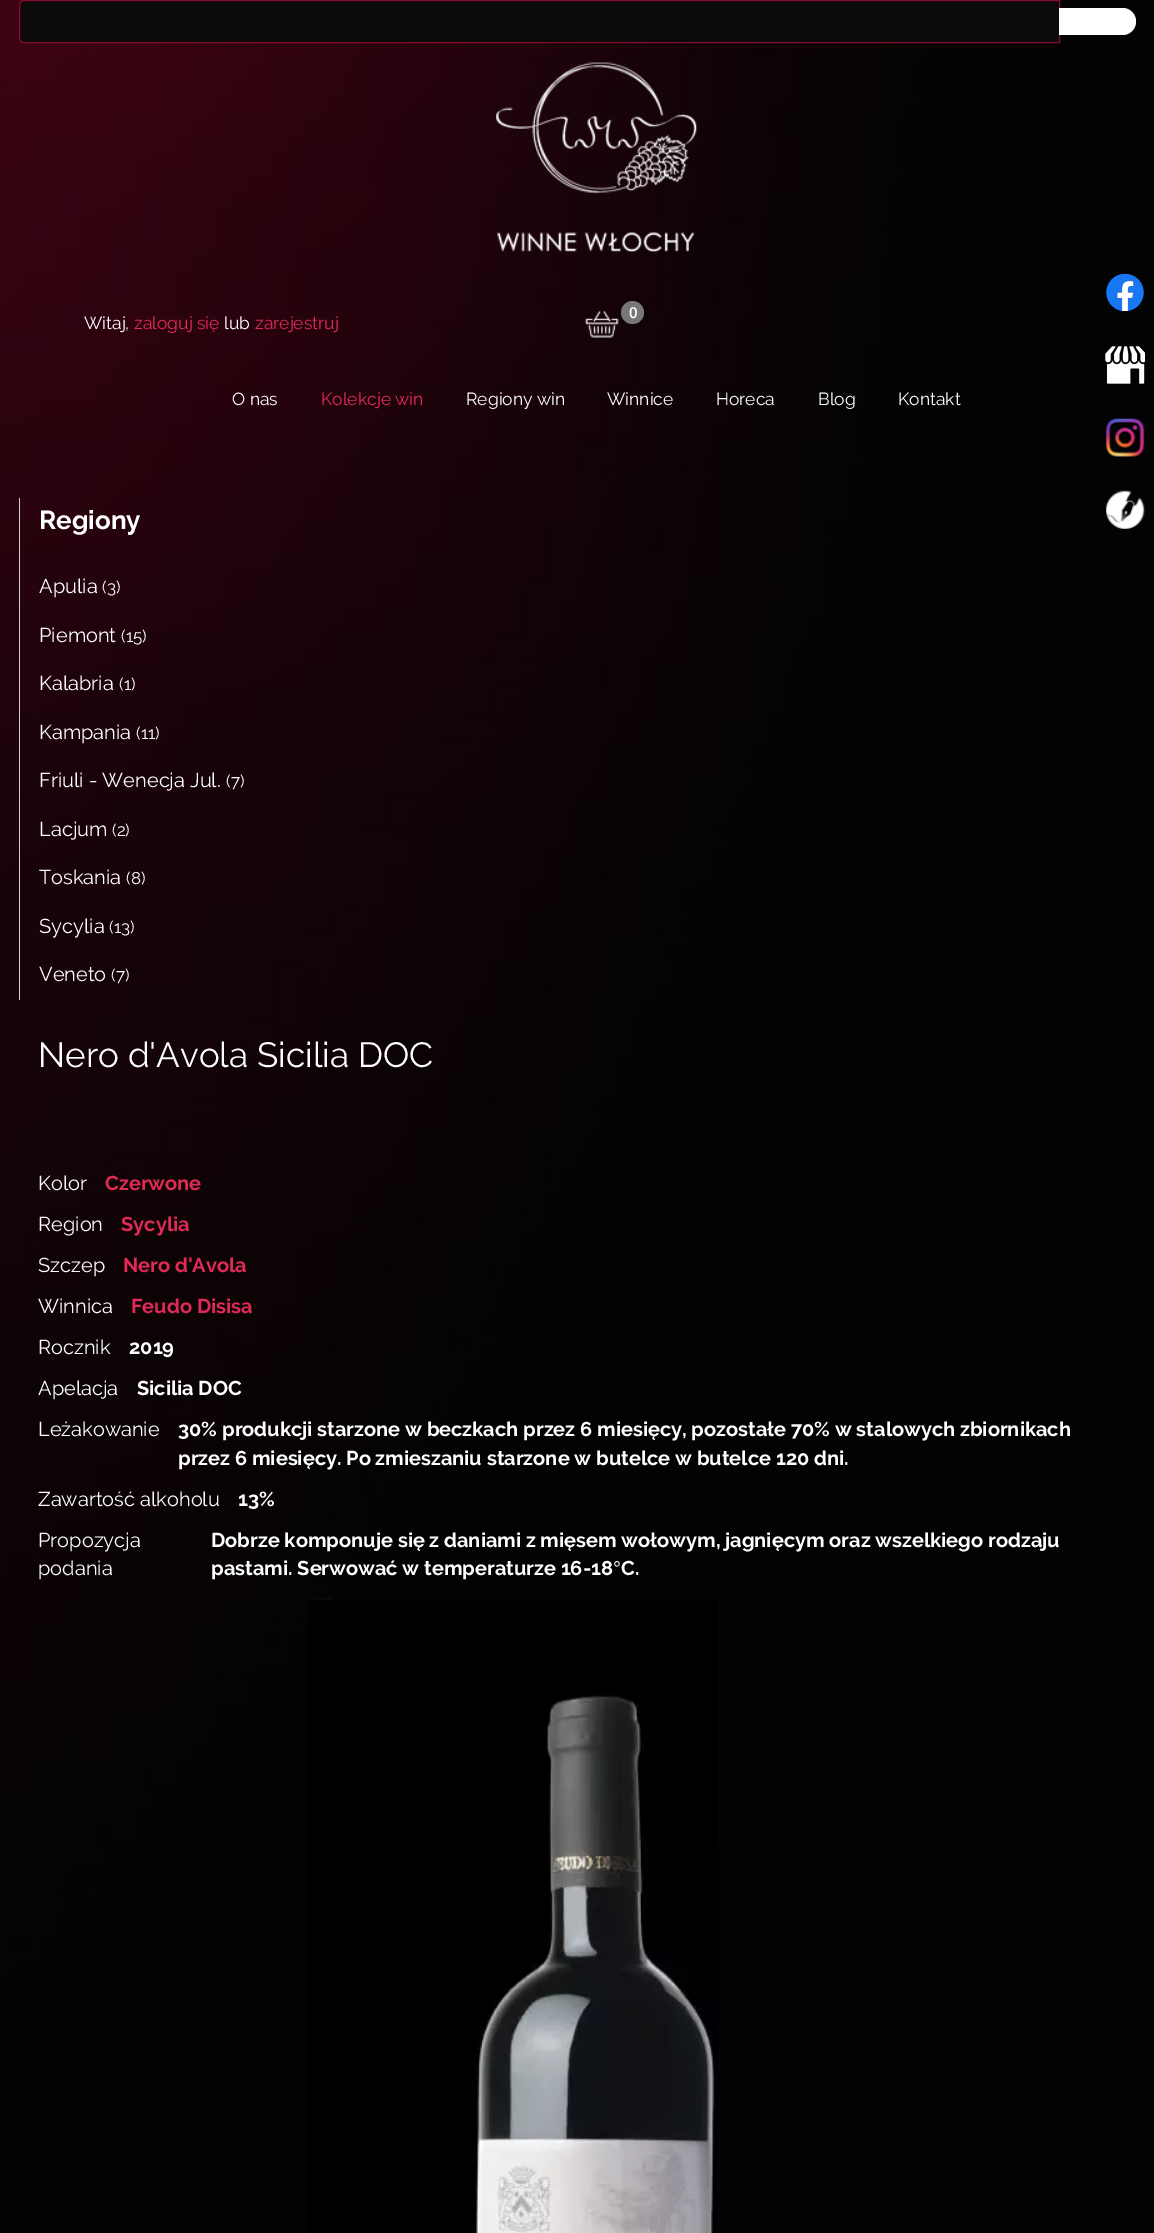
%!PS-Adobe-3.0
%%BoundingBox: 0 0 1154 2233
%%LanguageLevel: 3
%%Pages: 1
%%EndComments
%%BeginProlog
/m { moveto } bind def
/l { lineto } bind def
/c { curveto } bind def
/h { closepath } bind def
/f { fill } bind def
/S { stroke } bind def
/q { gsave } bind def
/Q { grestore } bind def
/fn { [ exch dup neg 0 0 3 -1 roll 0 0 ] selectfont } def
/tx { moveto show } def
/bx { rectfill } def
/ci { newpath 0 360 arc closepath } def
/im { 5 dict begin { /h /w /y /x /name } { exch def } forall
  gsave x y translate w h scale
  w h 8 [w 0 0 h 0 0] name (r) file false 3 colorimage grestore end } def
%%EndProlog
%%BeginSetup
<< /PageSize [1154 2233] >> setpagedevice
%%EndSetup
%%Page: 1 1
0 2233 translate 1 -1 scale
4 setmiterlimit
1 setgray
0 0 1154 2233 bx
(image0.raw) 0 0 1154 2233 im
0.047 0.039 0.039 setrgbcolor
24 0.5 m 1059.5 0.5 l 1059.5 42.5 l 24 42.5 l 21.5 42.5 19.5 40.5 19.5 38 c 19.5 5 l 19.5 2.5 21.5 0.5 24 0.5 c h q f Q
0.522 0.051 0.176 setrgbcolor
S
1 setgray
1059 8 m 1122.5 8 l 1130 8 1136 14 1136 21.5 c 1136 29 1130 35 1122.5 35 c 1059 35 l h f
(image1.raw) 496 62 201 190 im
(image2.raw) 585 311 34 27 im
0.467 setgray
632.5 312.5 11.5 ci f
/OpenSans-SemiBold 15 fn
1 setgray
(0) 629 318 tx
/Raleway-Regular 17.5 fn
(Witaj,) 84 329 tx
0.882 0.165 0.337 setrgbcolor
(zaloguj się) 134 329 tx
1 setgray
(lub) 224 329 tx
0.882 0.165 0.337 setrgbcolor
(zarejestruj) 255 329 tx
1 setgray
(O nas) 232 405 tx
0.882 0.165 0.337 setrgbcolor
(Kolekcje win) 321 405 tx
1 setgray
(Regiony win) 466 405 tx
(Winnice) 607 405 tx
(Horeca) 716 405 tx
(Blog) 818 405 tx
(Kontakt) 898 405 tx
(image3.raw) 1106 274 38 37 im
(image4.raw) 1105 346 40 38 im
(image5.raw) 1106 418 39 39 im
(image6.raw) 1106 490 39 39 im
0.816 setgray
19 498 1 502 bx
/Raleway-Bold 26 fn
1 setgray
(Regiony) 39 529 tx
/Raleway-Regular 20 fn
(Apulia) 39 593 tx
/Raleway-Regular 17 fn
(\(3\)) 102 593 tx
/Raleway-Regular 20 fn
(Piemont) 39 642 tx
/Raleway-Regular 17 fn
(\(15\)) 121 642 tx
/Raleway-Regular 20 fn
(Kalabria) 39 690 tx
/Raleway-Regular 17 fn
(\(1\)) 119 690 tx
/Raleway-Regular 20 fn
(Kampania) 39 739 tx
/Raleway-Regular 17 fn
(\(11\)) 136 739 tx
/Raleway-Regular 20 fn
(Friuli - Wenecja Jul.) 39 787 tx
/Raleway-Regular 17 fn
(\(7\)) 226 787 tx
/Raleway-Regular 20 fn
(Lacjum) 39 836 tx
/Raleway-Regular 17 fn
(\(2\)) 112 836 tx
/Raleway-Regular 20 fn
(Toskania) 39 884 tx
/Raleway-Regular 17 fn
(\(8\)) 126 884 tx
/Raleway-Regular 20 fn
(Sycylia) 39 933 tx
/Raleway-Regular 17 fn
(\(13\)) 109 933 tx
/Raleway-Regular 20 fn
(Veneto) 39 981 tx
/Raleway-Regular 17 fn
(\(7\)) 111 981 tx
/Raleway-Regular 35 fn
(Nero d'Avola Sicilia DOC) 38 1067 tx
/Raleway-Regular 20 fn
(Kolor) 38 1190 tx
/Raleway-Bold 20 fn
0.882 0.165 0.337 setrgbcolor
(Czerwone) 105 1190 tx
/Raleway-Regular 20 fn
1 setgray
(Region) 38 1231 tx
/Raleway-Bold 20 fn
0.882 0.165 0.337 setrgbcolor
(Sycylia) 121 1231 tx
/Raleway-Regular 20 fn
1 setgray
(Szczep) 38 1272 tx
/Raleway-Bold 20 fn
0.882 0.165 0.337 setrgbcolor
(Nero d'Avola) 123 1272 tx
/Raleway-Regular 20 fn
1 setgray
(Winnica) 38 1313 tx
/Raleway-Bold 20 fn
0.882 0.165 0.337 setrgbcolor
(Feudo Disisa) 131 1313 tx
/Raleway-Regular 20 fn
1 setgray
(Rocznik) 38 1354 tx
/Raleway-Bold 20 fn
(2019) 129 1354 tx
/Raleway-Regular 20 fn
(Apelacja) 38 1395 tx
/Raleway-Bold 20 fn
(Sicilia DOC) 137 1395 tx
/Raleway-Regular 20 fn
(Leżakowanie) 38 1436 tx
/Raleway-Bold 20 fn
(30% produkcji starzone w beczkach przez 6 miesięcy, pozostałe 70% w stalowych zbiornikach) 178 1436 tx
(przez 6 miesięcy. Po zmieszaniu starzone w butelce w butelce 120 dni.) 178 1465 tx
/Raleway-Regular 20 fn
(Zawartość alkoholu) 38 1506 tx
/Raleway-Bold 20 fn
(13%) 238 1506 tx
/Raleway-Regular 20 fn
(Propozycja) 38 1547 tx
(podania) 38 1575 tx
/Raleway-Bold 20 fn
(Dobrze komponuje się z daniami z mięsem wołowym, jagnięcym oraz wszelkiego rodzaju) 211 1547 tx
(pastami. Serwować w temperaturze 16-18) 211 1575 tx
/LiberationSans-Regular 20 fn
(°) 613 1575 tx
/Raleway-Bold 20 fn
(C.) 621 1575 tx
(image7.raw) 308 1597 410 636 im
showpage
%%EOF
